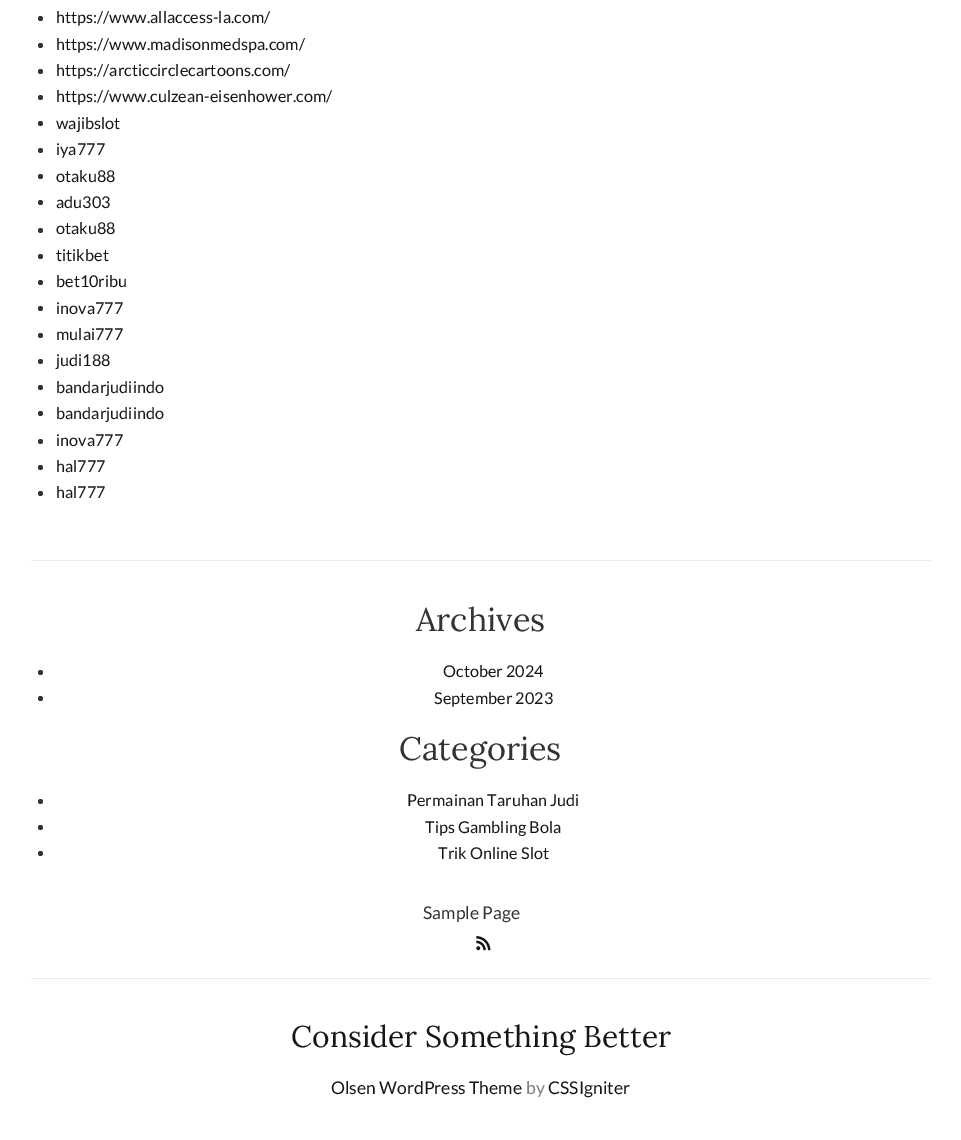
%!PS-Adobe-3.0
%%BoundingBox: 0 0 961 1140
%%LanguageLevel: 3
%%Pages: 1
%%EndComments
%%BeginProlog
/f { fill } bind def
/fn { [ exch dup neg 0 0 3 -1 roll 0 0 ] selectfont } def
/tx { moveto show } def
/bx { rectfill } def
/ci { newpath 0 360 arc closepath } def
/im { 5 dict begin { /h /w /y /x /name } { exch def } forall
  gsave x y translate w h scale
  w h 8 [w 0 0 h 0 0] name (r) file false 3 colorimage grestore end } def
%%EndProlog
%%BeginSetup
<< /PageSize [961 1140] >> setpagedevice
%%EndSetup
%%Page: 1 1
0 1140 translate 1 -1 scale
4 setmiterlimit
1 setgray
0 0 961 1140 bx
0.2 setgray
40.5 18.5 2.5 ci f
/Lato-Regular 16.25 fn
0.086 setgray
(https://www.allaccess-la.com/) 56 23 tx
0.2 setgray
40.5 45.5 2.5 ci f
0.086 setgray
(https://www.madisonmedspa.com/) 56 50 tx
0.2 setgray
40.5 71.5 2.5 ci f
0.086 setgray
(https://arcticcirclecartoons.com/) 56 76 tx
0.2 setgray
40.5 97.5 2.5 ci f
0.086 setgray
(https://www.culzean-eisenhower.com/) 56 102 tx
0.2 setgray
40.5 123.5 2.5 ci f
0.086 setgray
(wajibslot) 56 129 tx
0.2 setgray
40.5 150.5 2.5 ci f
0.086 setgray
(iya777) 56 155 tx
0.2 setgray
40.5 176.5 2.5 ci f
0.086 setgray
(otaku88) 56 182 tx
0.2 setgray
40.5 202.5 2.5 ci f
0.086 setgray
(adu303) 56 208 tx
0.2 setgray
40.5 230.5 2.5 ci f
0.086 setgray
(otaku88) 56 234 tx
0.2 setgray
40.5 256.5 2.5 ci f
0.086 setgray
(titikbet) 56 261 tx
0.2 setgray
40.5 282.5 2.5 ci f
0.086 setgray
(bet10ribu) 56 287 tx
0.2 setgray
40.5 308.5 2.5 ci f
0.086 setgray
(inova777) 56 314 tx
0.2 setgray
40.5 335.5 2.5 ci f
0.086 setgray
(mulai777) 56 340 tx
0.2 setgray
40.5 361.5 2.5 ci f
0.086 setgray
(judi188) 56 366 tx
0.2 setgray
40.5 387.5 2.5 ci f
0.086 setgray
(bandarjudiindo) 56 393 tx
0.2 setgray
40.5 413.5 2.5 ci f
0.086 setgray
(bandarjudiindo) 56 419 tx
0.2 setgray
40.5 441.5 2.5 ci f
0.086 setgray
(inova777) 56 446 tx
0.2 setgray
40.5 467.5 2.5 ci f
0.086 setgray
(hal777) 56 472 tx
0.2 setgray
40.5 493.5 2.5 ci f
0.086 setgray
(hal777) 56 498 tx
0.922 setgray
31 560 900 1 bx
/Lora-Regular 32.5 fn
0.2 setgray
(Archives) 416 631 tx
40.5 672.5 2.5 ci f
/Lato-Regular 16.25 fn
0.086 setgray
(October 2024) 443 677 tx
0.2 setgray
40.5 698.5 2.5 ci f
0.086 setgray
(September 2023) 434 704 tx
/Lora-Regular 32.5 fn
0.2 setgray
(Categories) 399 760 tx
40.5 801.5 2.5 ci f
/Lato-Regular 16.25 fn
0.086 setgray
(Permainan Taruhan Judi) 407 806 tx
0.2 setgray
40.5 827.5 2.5 ci f
0.086 setgray
(Tips Gambling Bola) 425 833 tx
0.2 setgray
40.5 853.5 2.5 ci f
0.086 setgray
(Trik Online Slot) 438 859 tx
0.922 setgray
31 978 900 1 bx
/Lato-Regular 17.5 fn
0.2 setgray
(Sample Page) 423 919 tx
(image0.raw) 476 936 15 15 im
/Lora-Regular 30 fn
0.086 setgray
(Consider Something Better) 291 1047 tx
/Lato-Regular 17.5 fn
(Olsen WordPress Theme) 331 1094 tx
0.494 setgray
(by) 526 1094 tx
0.086 setgray
(CSSIgniter) 548 1094 tx
showpage
%%EOF
